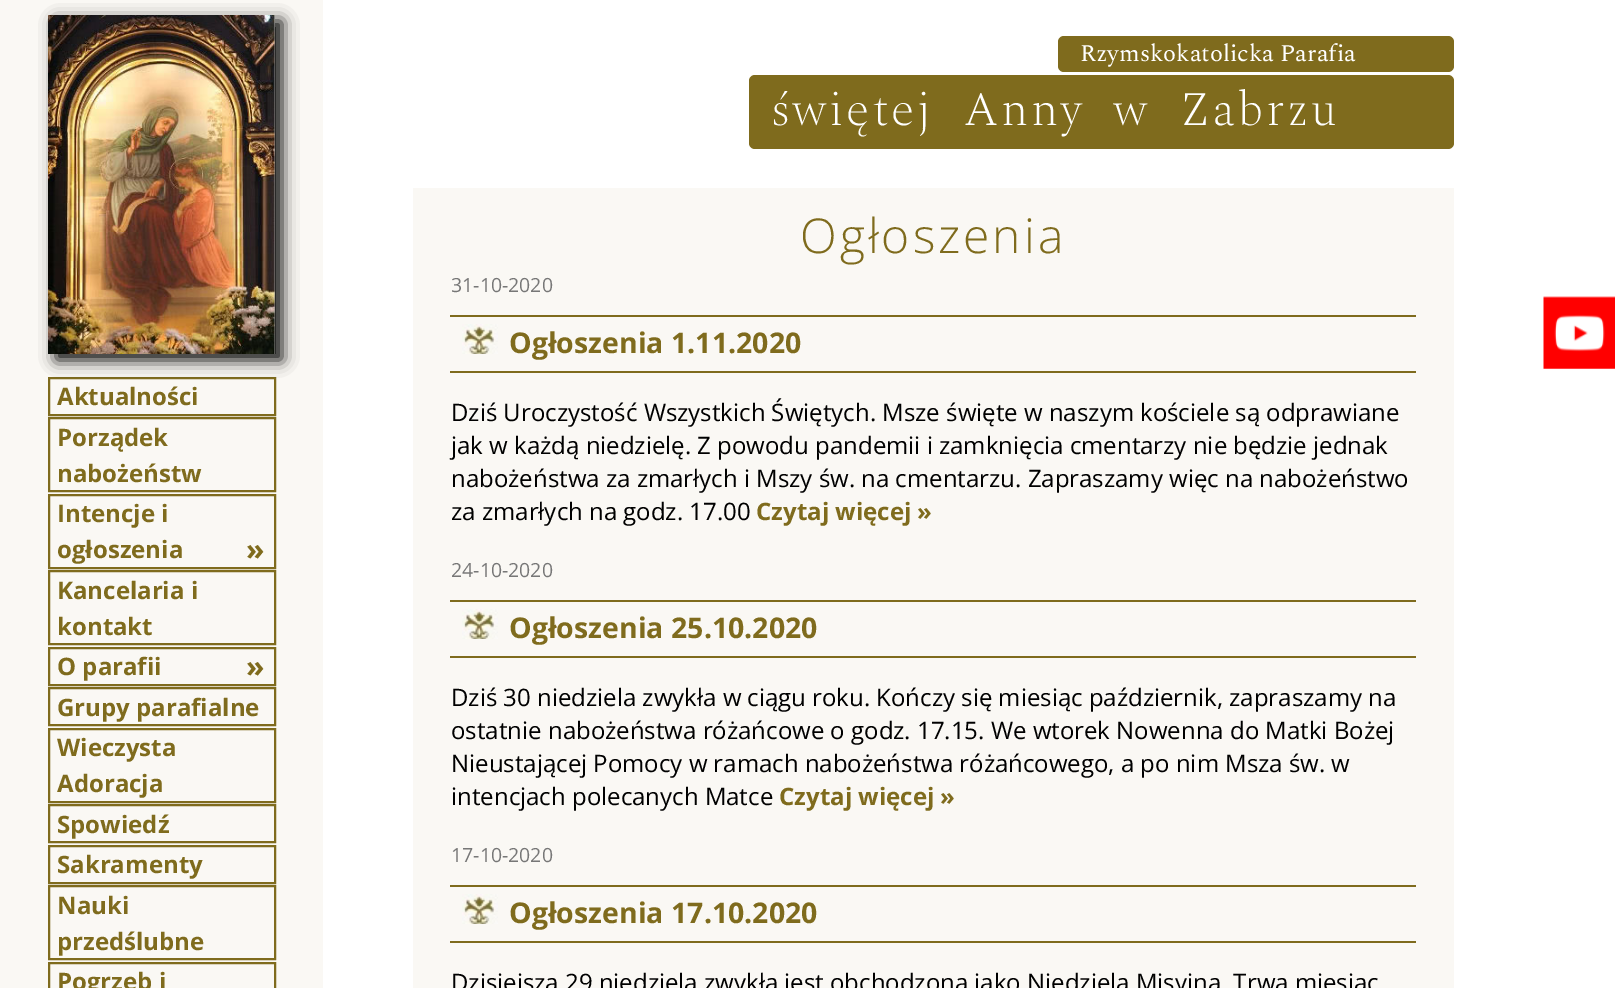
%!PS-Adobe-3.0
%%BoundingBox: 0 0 1615 988
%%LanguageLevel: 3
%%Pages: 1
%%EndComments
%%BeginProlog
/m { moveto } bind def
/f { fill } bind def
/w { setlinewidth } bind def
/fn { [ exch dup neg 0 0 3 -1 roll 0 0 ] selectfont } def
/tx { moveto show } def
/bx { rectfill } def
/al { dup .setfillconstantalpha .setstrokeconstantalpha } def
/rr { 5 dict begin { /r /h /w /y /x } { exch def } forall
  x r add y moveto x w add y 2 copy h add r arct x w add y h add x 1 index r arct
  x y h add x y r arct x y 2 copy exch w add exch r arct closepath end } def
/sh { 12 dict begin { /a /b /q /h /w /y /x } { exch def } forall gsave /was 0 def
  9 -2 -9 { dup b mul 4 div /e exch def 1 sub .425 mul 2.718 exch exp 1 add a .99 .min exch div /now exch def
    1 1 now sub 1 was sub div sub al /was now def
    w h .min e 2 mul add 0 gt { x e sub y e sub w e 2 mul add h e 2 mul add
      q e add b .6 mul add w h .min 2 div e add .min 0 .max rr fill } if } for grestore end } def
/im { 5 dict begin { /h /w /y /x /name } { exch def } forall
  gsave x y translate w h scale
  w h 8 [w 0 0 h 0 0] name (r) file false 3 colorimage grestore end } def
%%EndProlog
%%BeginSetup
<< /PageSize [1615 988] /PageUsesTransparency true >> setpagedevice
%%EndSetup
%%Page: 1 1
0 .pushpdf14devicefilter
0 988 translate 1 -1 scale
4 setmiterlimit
1 setgray
0 0 1615 988 bx
0.98 0.973 0.957 setrgbcolor
0 0 323 988 bx
0.498 0.42 0.114 setrgbcolor
2 w
49 378 226 37 rectstroke
0 setgray
56 21 226 339 0 8 1 sh
(image0.raw) 48 15 227 339 im
/OpenSans-Bold 24 fn
0.498 0.42 0.114 setrgbcolor
(Aktualności) 57 405 tx
49 418 226 73 rectstroke
(Porządek) 57 446 tx
(nabożeństw) 57 482 tx
49 495 226 73 rectstroke
(Intencje i) 57 522 tx
(ogłoszenia) 57 558 tx
/OpenSans-Bold 30 fn
(») 246 560 tx
49 571 226 73 rectstroke
/OpenSans-Bold 24 fn
(Kancelaria i) 57 599 tx
(kontakt) 57 635 tx
49 648 226 37 rectstroke
(O parafii) 57 675 tx
/OpenSans-Bold 30 fn
(») 246 677 tx
49 688 226 37 rectstroke
/OpenSans-Bold 24 fn
(Grupy parafialne) 57 716 tx
49 729 226 73 rectstroke
(Wieczysta) 57 756 tx
(Adoracja) 57 792 tx
49 805 226 37 rectstroke
(Spowiedź) 57 833 tx
49 846 226 37 rectstroke
(Sakramenty) 57 873 tx
49 886 226 73 rectstroke
(Nauki) 57 914 tx
(przedślubne) 57 950 tx
49 963 226 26 rectstroke
(Pogrzeb i) 57 990 tx
1058 36 396 36 6 rr f
/SpectralSC-Regular 24 fn
1 setgray
(Rzymskokatolicka Parafia) 1080 61 tx
0.498 0.42 0.114 setrgbcolor
749 75 705 74 6 rr f
/SpectralSC-ExtraLight 48 fn
1 setgray
771 125 m 15 0 32 3 0 (świętej Anny w Zabrzu) awidthshow
0.98 0.973 0.957 setrgbcolor
413 188 1041 800 bx
/OpenSans-Light 48 fn
0.498 0.42 0.114 setrgbcolor
800 253 m 3 0 (Ogłoszenia) ashow
/OpenSans-Regular 19.5 fn
0.467 setgray
(31-10-2020) 451 292 tx
0.498 0.42 0.114 setrgbcolor
450 315 966 2 bx
450 371 966 2 bx
(image1.raw) 462 324 36 30 im
/OpenSans-Bold 28.5 fn
(Ogłoszenia 1.11.2020) 509 353 tx
/OpenSans-Regular 24 fn
0 setgray
(Dziś Uroczystość Wszystkich Świętych. Msze święte w naszym kościele są odprawiane) 451 421 tx
(jak w każdą niedzielę. Z powodu pandemii i zamknięcia cmentarzy nie będzie jednak) 451 454 tx
(nabożeństwa za zmarłych i Mszy św. na cmentarzu. Zapraszamy więc na nabożeństwo) 451 487 tx
(za zmarłych na godz. 17.00) 451 520 tx
/OpenSans-Bold 24 fn
0.498 0.42 0.114 setrgbcolor
(Czytaj więcej ») 756 520 tx
/OpenSans-Regular 19.5 fn
0.467 setgray
(24-10-2020) 451 577 tx
0.498 0.42 0.114 setrgbcolor
450 600 966 2 bx
450 656 966 2 bx
(image1.raw) 462 609 36 30 im
/OpenSans-Bold 28.5 fn
(Ogłoszenia 25.10.2020) 509 638 tx
/OpenSans-Regular 24 fn
0 setgray
(Dziś 30 niedziela zwykła w ciągu roku. Kończy się miesiąc październik, zapraszamy na) 451 706 tx
(ostatnie nabożeństwa różańcowe o godz. 17.15. We wtorek Nowenna do Matki Bożej) 451 739 tx
(Nieustającej Pomocy w ramach nabożeństwa różańcowego, a po nim Msza św. w) 451 772 tx
(intencjach polecanych Matce) 451 805 tx
/OpenSans-Bold 24 fn
0.498 0.42 0.114 setrgbcolor
(Czytaj więcej ») 779 805 tx
/OpenSans-Regular 19.5 fn
0.467 setgray
(17-10-2020) 451 862 tx
0.498 0.42 0.114 setrgbcolor
450 885 966 2 bx
450 941 966 2 bx
(image1.raw) 462 894 36 30 im
/OpenSans-Bold 28.5 fn
(Ogłoszenia 17.10.2020) 509 923 tx
/OpenSans-Regular 24 fn
0 setgray
(Dzisiejsza 29 niedziela zwykła jest obchodzona jako Niedziela Misyjna. Trwa miesiąc) 451 991 tx
(image2.raw) 1543 296 72 73 im
.poppdf14devicefilter showpage
%%EOF
